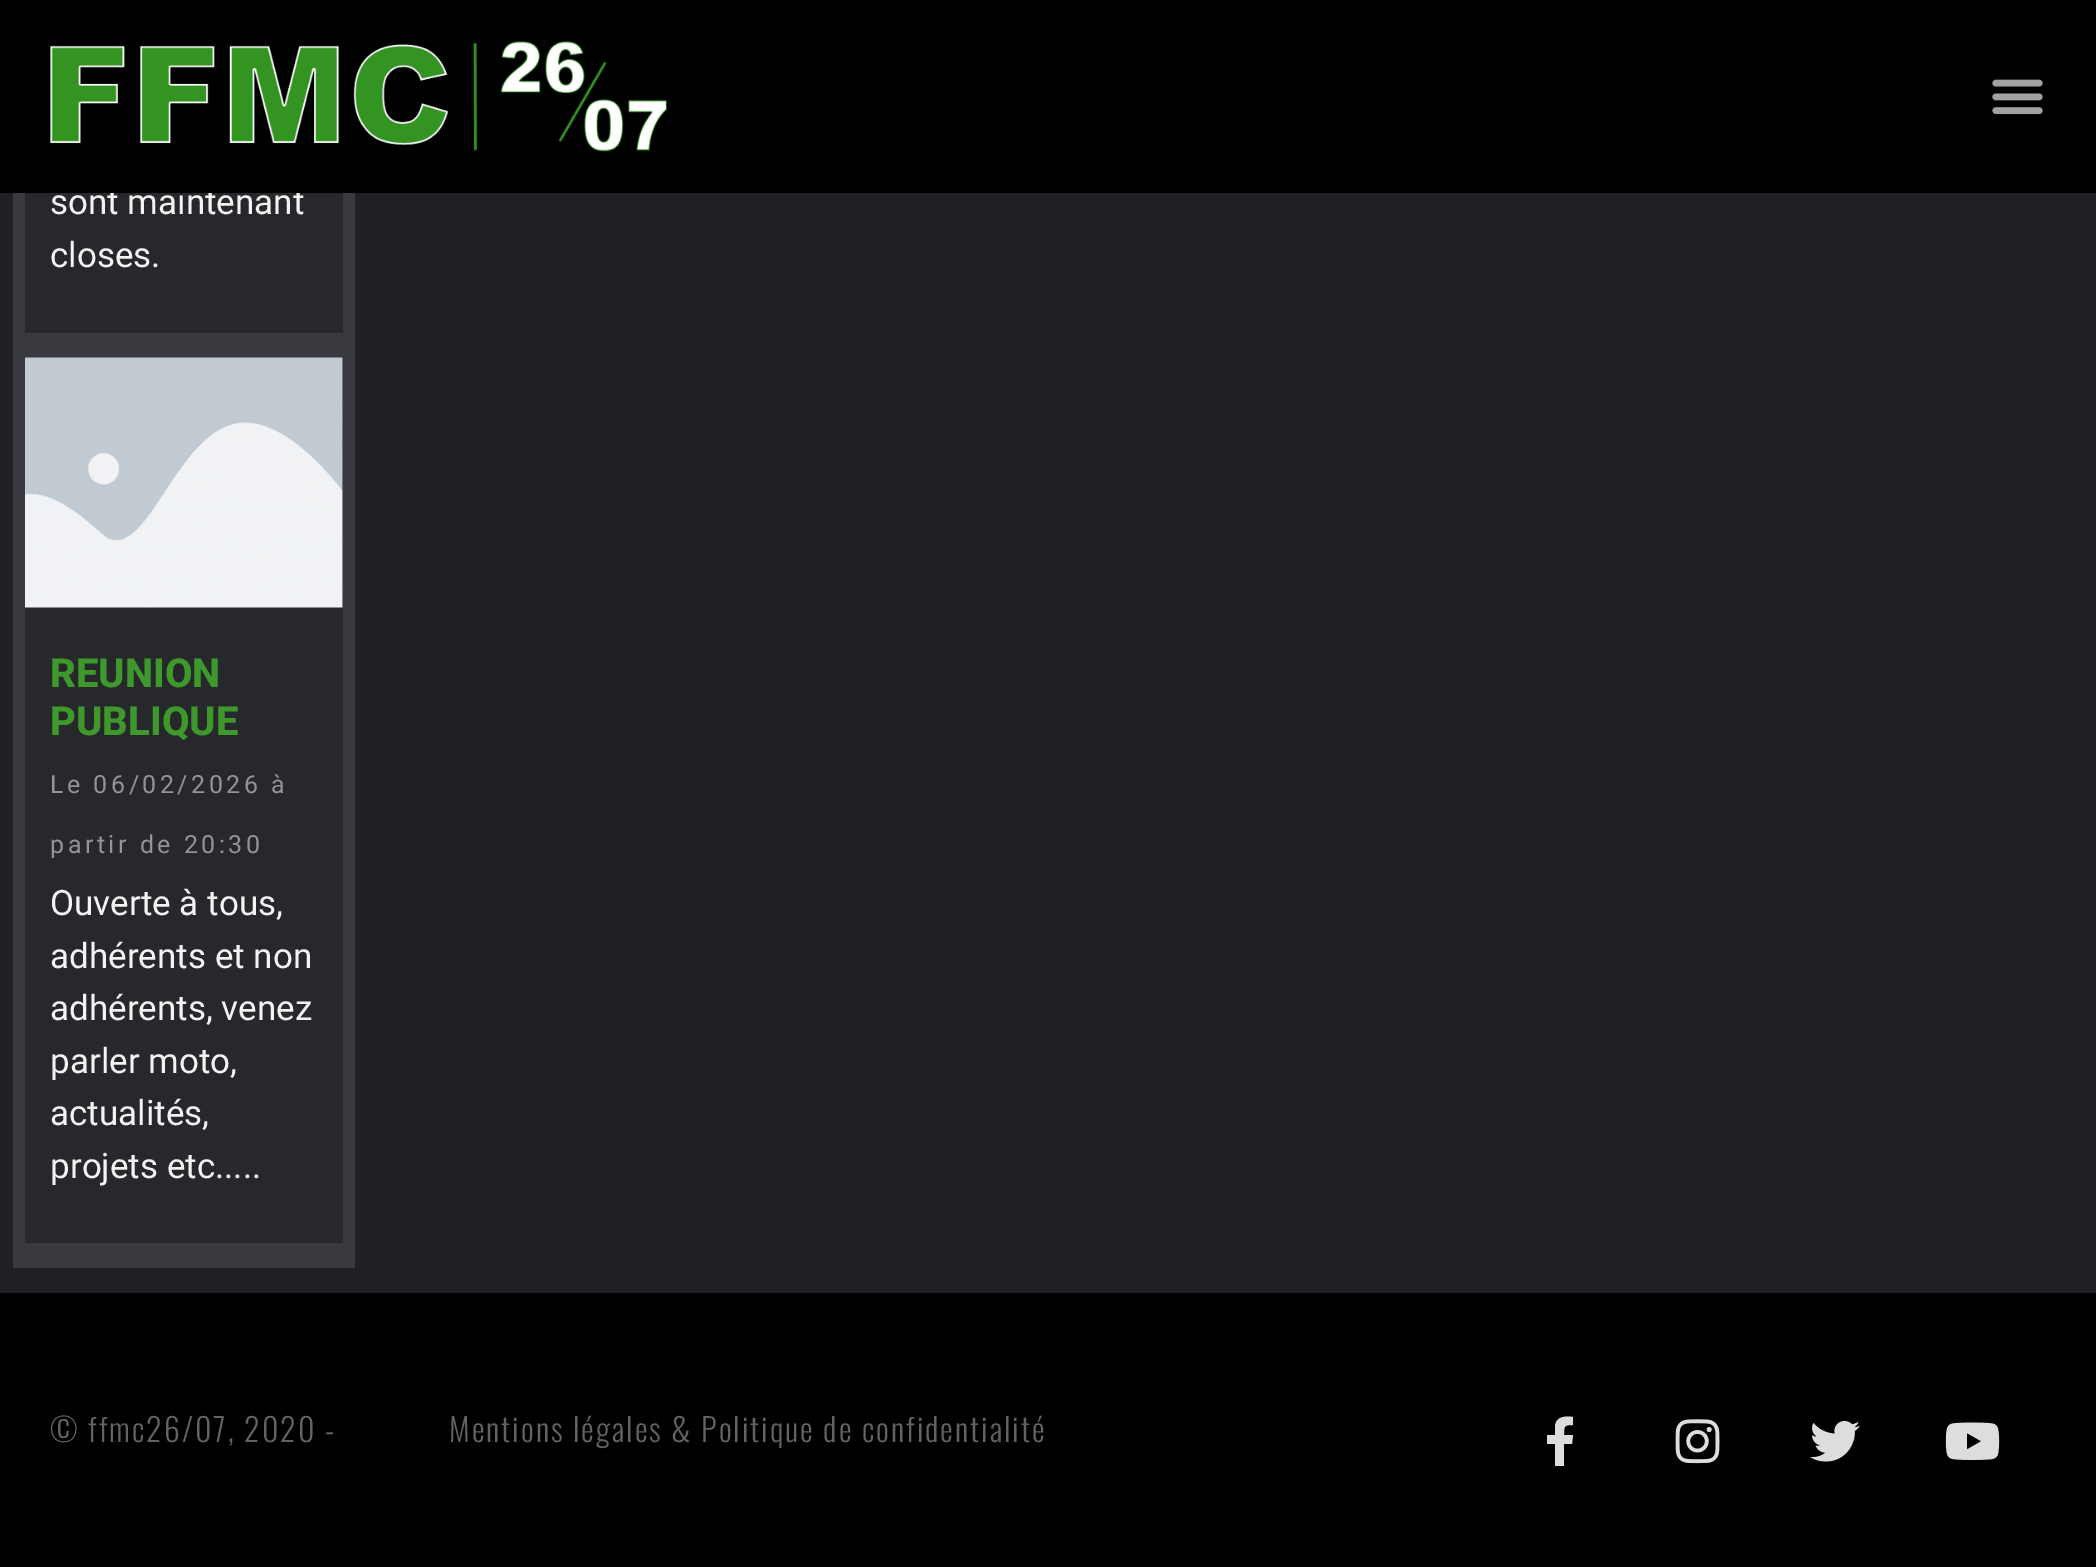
%!PS-Adobe-3.0
%%BoundingBox: 0 0 2096 1567
%%LanguageLevel: 3
%%Pages: 1
%%EndComments
%%BeginProlog
/m { moveto } bind def
/l { lineto } bind def
/c { curveto } bind def
/h { closepath } bind def
/f { fill } bind def
/fn { [ exch dup neg 0 0 3 -1 roll 0 0 ] selectfont } def
/tx { moveto show } def
/bx { rectfill } def
/im { 5 dict begin { /h /w /y /x /name } { exch def } forall
  gsave x y translate w h scale
  w h 8 [w 0 0 h 0 0] name (r) file false 3 colorimage grestore end } def
%%EndProlog
%%BeginSetup
<< /PageSize [2096 1567] >> setpagedevice
%%EndSetup
%%Page: 1 1
0 1567 translate 1 -1 scale
4 setmiterlimit
0.125 0.129 0.145 setrgbcolor
0 0 2096 1567 bx
0.224 0.227 0.247 setrgbcolor
13 193 342 1075 bx
0.153 0.157 0.169 setrgbcolor
25 193 318 140 bx
/Roboto-Regular 35 fn
0.953 setgray
(sont maintenant) 50 214 tx
0 setgray
0 0 2096 193 bx
(image0.raw) 50 41 617 111 im
(image1.raw) 1992 79 51 36 im
0.953 setgray
(closes.) 50 267 tx
0.153 0.157 0.169 setrgbcolor
25 358 318 885 bx
(image2.raw) 25 357 318 251 im
/Roboto-ExtraBold 40 fn
0.247 0.596 0.173 setrgbcolor
(REUNION) 50 687 tx
(PUBLIQUE) 50 735 tx
/Roboto-Regular 25 fn
0.576 0.58 0.584 setrgbcolor
50 793 m 3.5 0 (Le 06/02/2026 à) ashow
50 853 m 3.5 0 (partir de 20:30) ashow
/Roboto-Regular 35 fn
0.953 setgray
(Ouverte à tous,) 50 915 tx
(adhérents et non) 50 968 tx
(adhérents, venez) 50 1020 tx
(parler moto,) 50 1073 tx
(actualités,) 50 1125 tx
(projets etc.....) 50 1178 tx
0 setgray
0 1293 2096 274 bx
/Oswald-Light 32 fn
0.388 setgray
50 1442 m 2 0 (© ffmc26/07, 2020 -) ashow
449 1442 m 2 0 (Mentions légales & Politique de confidentialité) ashow
0.867 setgray
1572 1444 m 1564 1444 l 1564 1466 l 1555 1466 l 1555 1444 l 1547 1444 l 1547 1435 l 1555 1435 l 1555 1426 l 1556 1416 1566 1416 1573 1417 c 1573 1425 l 1564 1425 1564 1426 1564 1435 c 1573 1435 l h f
(image3.raw) 1675 1419 45 45 im
(image4.raw) 1810 1420 50 42 im
(image5.raw) 1945 1422 55 38 im
showpage
%%EOF
